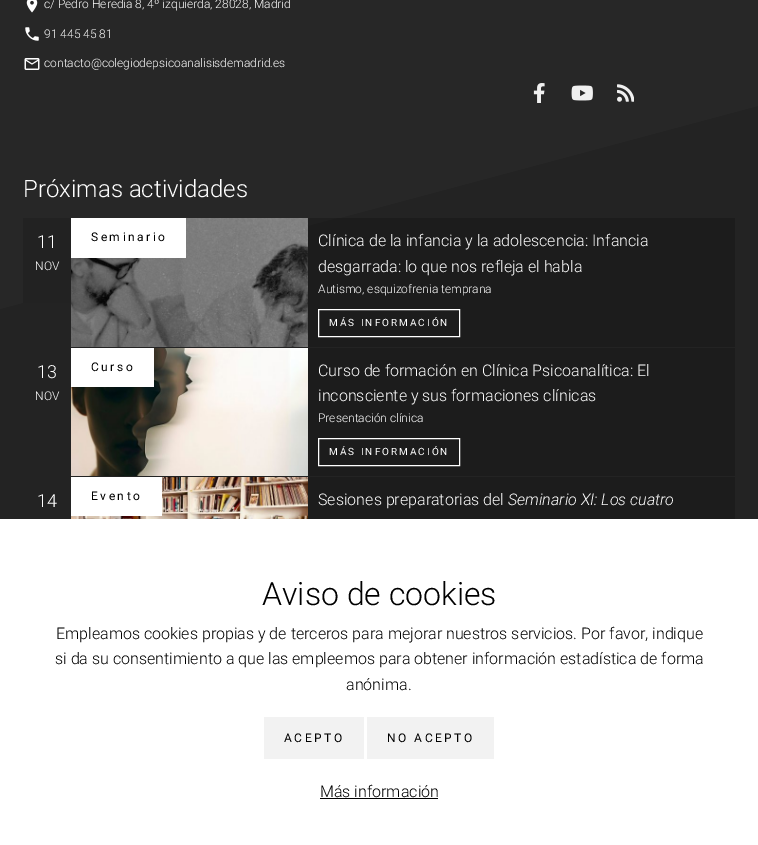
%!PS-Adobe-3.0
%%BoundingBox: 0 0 758 845
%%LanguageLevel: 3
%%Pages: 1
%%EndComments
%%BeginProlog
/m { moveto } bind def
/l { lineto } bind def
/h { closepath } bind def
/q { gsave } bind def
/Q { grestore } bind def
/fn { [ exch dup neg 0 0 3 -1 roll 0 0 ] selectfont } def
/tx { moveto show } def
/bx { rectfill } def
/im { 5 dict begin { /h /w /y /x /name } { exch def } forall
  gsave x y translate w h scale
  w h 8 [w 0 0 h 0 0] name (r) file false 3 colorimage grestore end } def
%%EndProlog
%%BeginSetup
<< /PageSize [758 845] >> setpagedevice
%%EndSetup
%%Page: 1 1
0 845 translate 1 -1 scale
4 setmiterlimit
1 setgray
0 0 758 845 bx
q 0 0 m 758 0 l 758 519 l 0 519 l h clip newpath
<< /ShadingType 2 /ColorSpace /DeviceRGB /Coords [209 -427 549 842] /Extend [true true] /Function << /FunctionType 3 /Domain [0 1] /Functions [<< /FunctionType 2 /Domain [0 1] /C0 [0.153 0.153 0.153] /C1 [0.153 0.153 0.153] /N 1 >> << /FunctionType 2 /Domain [0 1] /C0 [0.137 0.137 0.137] /C1 [0.137 0.137 0.137] /N 1 >>] /Bounds [0.5] /Encode [0 1 0 1] >> >> shfill Q
q 308 218 m 735 218 l 735 347 l 308 347 l h clip newpath
<< /ShadingType 2 /ColorSpace /DeviceRGB /Coords [209 -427 549 842] /Extend [true true] /Function << /FunctionType 3 /Domain [0 1] /Functions [<< /FunctionType 2 /Domain [0 1] /C0 [0.122 0.122 0.122] /C1 [0.122 0.122 0.122] /N 1 >> << /FunctionType 2 /Domain [0 1] /C0 [0.11 0.11 0.11] /C1 [0.11 0.11 0.11] /N 1 >>] /Bounds [0.5] /Encode [0 1 0 1] >> >> shfill Q
(image0.raw) 26 0 12 13 im
/Roboto-Light 12 fn
(c/ Pedro Heredia 8, 4º izquierda, 28028, Madrid) 44 8 tx
(image1.raw) 25 27 14 14 im
(91 445 45 81) 44 38 tx
(image2.raw) 24 58 16 12 im
(contacto@colegiodepsicoanalisisdemadrid.es) 44 67 tx
(image3.raw) 533 83 12 20 im
(image4.raw) 571 85 22 16 im
(image5.raw) 617 84 17 18 im
/Roboto-Light 24 fn
(Próximas actividades) 23 197 tx
0.133 setgray
23 218 48 85 bx
/Roboto-Light 18 fn
1 setgray
(11) 37 248 tx
/Roboto-Light 12 fn
(NOV) 35 270 tx
(image6.raw) 71 218 237 129 im
71 218 115 40 bx
/Roboto-Regular 12 fn
0 setgray
91 241 m 2.5 0 (Seminario) ashow
/Roboto-Light 16 fn
1 setgray
(Clínica de la infancia y la adolescencia: Infancia) 318 246 tx
(desgarrada: lo que nos refleja el habla) 318 272 tx
/Roboto-Light 12 fn
(Autismo, esquizofrenia temprana) 318 293 tx
318.5 309.5 141 27 rectstroke
/Roboto-Regular 10 fn
329 326 m 2 0 (MÁS INFORMACIÓN) ashow
/Roboto-Light 18 fn
(13) 37 378 tx
/Roboto-Light 12 fn
(NOV) 35 400 tx
(image7.raw) 71 348 237 128 im
71 348 83 39 bx
/Roboto-Regular 12 fn
0 setgray
91 371 m 2.5 0 (Curso) ashow
0.11 setgray
308 348 427 128 bx
/Roboto-Light 16 fn
1 setgray
(Curso de formación en Clínica Psicoanalítica: El) 318 376 tx
(inconsciente y sus formaciones clínicas) 318 401 tx
/Roboto-Light 12 fn
(Presentación clínica) 318 422 tx
318.5 438.5 141 27 rectstroke
/Roboto-Regular 10 fn
329 455 m 2 0 (MÁS INFORMACIÓN) ashow
/Roboto-Light 18 fn
(14) 37 507 tx
(image8.raw) 71 477 237 42 im
71 477 91 39 bx
/Roboto-Regular 12 fn
0 setgray
91 500 m 2.5 0 (Evento) ashow
0.11 setgray
308 477 427 42 bx
/Roboto-Light 16 fn
1 setgray
(Sesiones preparatorias del) 318 505 tx
/Roboto-LightItalic 16 fn
(Seminario XI: Los cuatro) 508 505 tx
/Roboto-Light 32 fn
0 setgray
(Aviso de cookies) 262 605 tx
/Roboto-Light 16 fn
(Empleamos cookies propias y de terceros para mejorar nuestros servicios. Por favor, indique) 56 639 tx
(si da su consentimiento a que las empleemos para obtener información estadística de forma) 55 664 tx
(anónima.) 346 690 tx
0.949 setgray
264 717 100 42 bx
/Roboto-Regular 12 fn
0 setgray
284 742 m 2.5 0 (ACEPTO) ashow
0.949 setgray
367 717 127 42 bx
0 setgray
387 742 m 2.5 0 (NO ACEPTO) ashow
/Roboto-Light 16 fn
(Más información) 320 797 tx
320 798 118 1 bx
showpage
%%EOF
